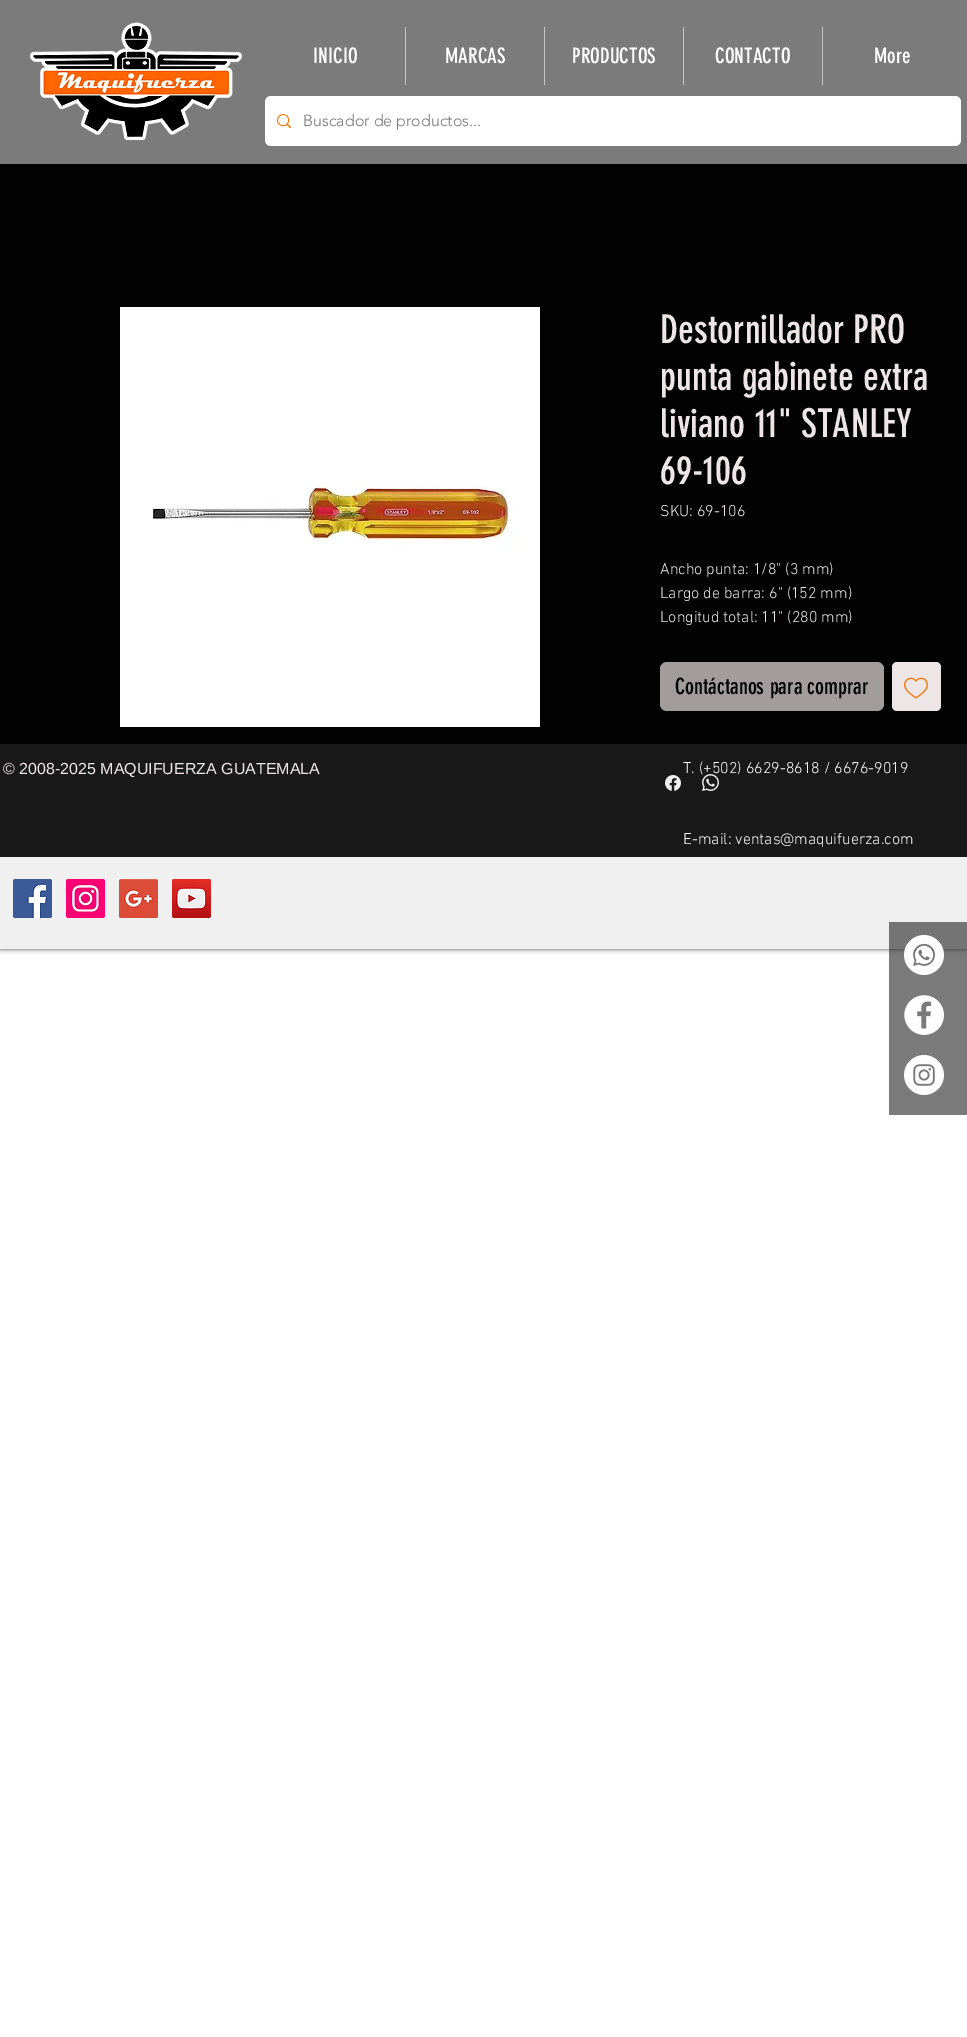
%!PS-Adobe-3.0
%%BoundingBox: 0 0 967 2037
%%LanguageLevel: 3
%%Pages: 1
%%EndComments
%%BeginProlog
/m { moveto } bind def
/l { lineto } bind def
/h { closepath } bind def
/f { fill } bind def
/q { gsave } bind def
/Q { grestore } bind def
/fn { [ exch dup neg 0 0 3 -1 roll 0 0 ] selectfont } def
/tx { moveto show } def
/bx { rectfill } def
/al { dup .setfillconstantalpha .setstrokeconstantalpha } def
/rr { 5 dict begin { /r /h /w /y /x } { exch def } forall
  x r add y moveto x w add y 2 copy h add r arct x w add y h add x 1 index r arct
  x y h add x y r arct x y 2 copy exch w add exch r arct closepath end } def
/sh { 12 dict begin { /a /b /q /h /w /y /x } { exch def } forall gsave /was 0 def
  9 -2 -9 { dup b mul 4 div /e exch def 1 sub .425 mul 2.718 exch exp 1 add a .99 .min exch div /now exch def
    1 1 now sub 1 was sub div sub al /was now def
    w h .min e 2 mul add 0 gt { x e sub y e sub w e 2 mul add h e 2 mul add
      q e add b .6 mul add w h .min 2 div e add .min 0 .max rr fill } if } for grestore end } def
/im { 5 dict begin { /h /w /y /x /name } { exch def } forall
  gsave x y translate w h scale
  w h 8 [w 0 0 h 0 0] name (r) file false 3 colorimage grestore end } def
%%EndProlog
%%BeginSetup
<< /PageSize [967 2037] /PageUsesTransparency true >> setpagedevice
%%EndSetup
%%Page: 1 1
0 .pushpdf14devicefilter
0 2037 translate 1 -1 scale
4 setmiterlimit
1 setgray
0 0 967 2037 bx
0.945 0.941 0.941 setrgbcolor
0 857 967 92 bx
0.482 setgray
0 0 967 164 bx
(image0.raw) 29 22 214 119 im
/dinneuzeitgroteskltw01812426-Regular 21 fn
1 setgray
(INICIO) 313 63 tx
0.776 setgray
405 27 1 58 bx
1 setgray
(MARCAS) 445 63 tx
0.776 setgray
544 27 1 58 bx
1 setgray
(PRODUCTOS) 572 63 tx
0.776 setgray
683 27 1 58 bx
1 setgray
(CONTACTO) 715 63 tx
0.776 setgray
822 27 1 58 bx
1 setgray
(More) 874 63 tx
265 96 696 50 6 rr f
(image1.raw) 277 114 14 14 im
/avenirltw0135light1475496-Light 16 fn
0.471 setgray
(Buscador de productos...) 303 126 tx
0.008 setgray
0 164 967 580 bx
0.102 0.098 0.098 setrgbcolor
0 744 967 113 bx
(image2.raw) 120 307 420 420 im
/dinneuzeitgroteskltw01812426-Regular 39 fn
0.933 0.902 0.902 setrgbcolor
(Destornillador PRO) 660 343 tx
(punta gabinete extra) 660 390 tx
(liviano 11" STANLEY) 660 437 tx
(69-106) 660 484 tx
/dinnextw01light-Light 16 fn
(SKU: 69-106) 660 516 tx
(Ancho punta: 1/8" \(3 mm\)) 660 574 tx
(Largo de barra: 6" \(152 mm\)) 660 598 tx
(Longitud total: 11" \(280 mm\)) 660 622 tx
0.635 0.612 0.612 setrgbcolor
660 662 224 49 7 rr f
/dinneuzeitgroteskltw01812426-Regular 22 fn
0.008 setgray
(Contáctanos para comprar) 675 694 tx
0.933 0.902 0.902 setrgbcolor
892 662 49 49 5 rr f
(image3.raw) 904 677 24 22 im
(image4.raw) 665 775 16 16 im
(image5.raw) 702 774 17 17 im
q
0 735 m 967 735 l 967 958 l 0 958 l h 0 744 m 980 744 l 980 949 l 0 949 l h eoclip newpath
0 setgray
0 744 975 205 0 2.5 0.7 sh
Q
/LiberationSans-Regular 16 fn
(© 2008-2025 MAQUIFUERZA GUATEMALA) 3 774 tx
/dinnextw01light-Light 16 fn
1 setgray
(T. \(+502\) 6629-8618 / 6676-9019) 683 773 tx
(E-mail: ventas@maquifuerza.com) 683 844 tx
(image6.raw) 13 879 39 39 im
(image7.raw) 66 879 39 39 im
(image8.raw) 119 879 39 39 im
(image9.raw) 172 879 39 39 im
0.65 al
0.196 setgray
889 922 78 193 bx
1 al
(image10.raw) 904 935 40 40 im
(image11.raw) 904 995 40 40 im
(image12.raw) 904 1055 40 40 im
.poppdf14devicefilter showpage
%%EOF
